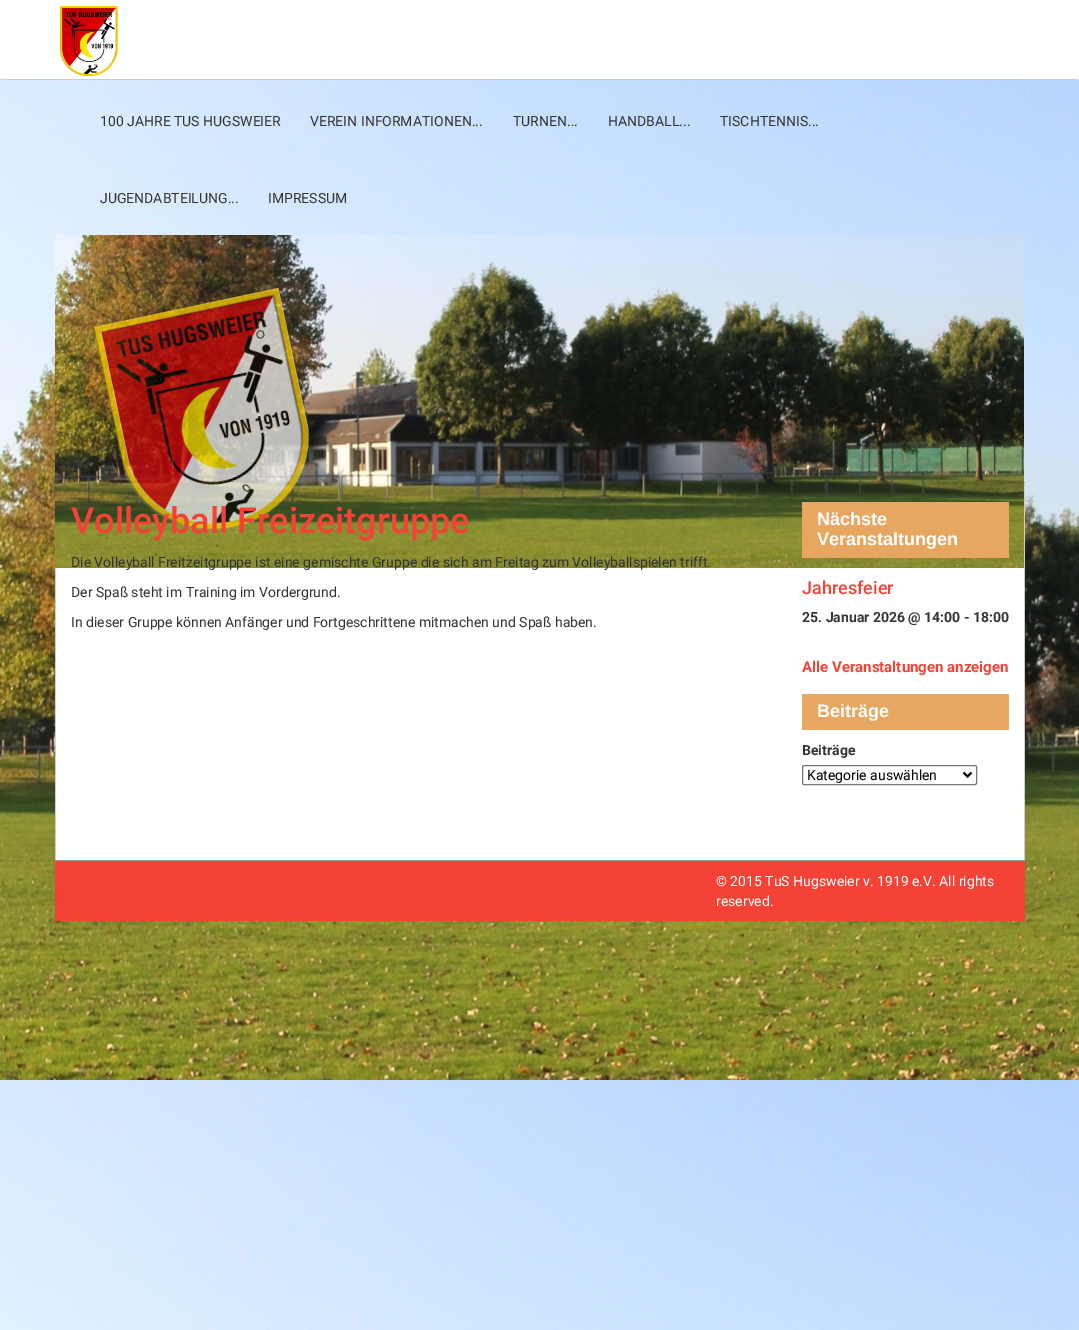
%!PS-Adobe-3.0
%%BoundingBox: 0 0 1079 1330
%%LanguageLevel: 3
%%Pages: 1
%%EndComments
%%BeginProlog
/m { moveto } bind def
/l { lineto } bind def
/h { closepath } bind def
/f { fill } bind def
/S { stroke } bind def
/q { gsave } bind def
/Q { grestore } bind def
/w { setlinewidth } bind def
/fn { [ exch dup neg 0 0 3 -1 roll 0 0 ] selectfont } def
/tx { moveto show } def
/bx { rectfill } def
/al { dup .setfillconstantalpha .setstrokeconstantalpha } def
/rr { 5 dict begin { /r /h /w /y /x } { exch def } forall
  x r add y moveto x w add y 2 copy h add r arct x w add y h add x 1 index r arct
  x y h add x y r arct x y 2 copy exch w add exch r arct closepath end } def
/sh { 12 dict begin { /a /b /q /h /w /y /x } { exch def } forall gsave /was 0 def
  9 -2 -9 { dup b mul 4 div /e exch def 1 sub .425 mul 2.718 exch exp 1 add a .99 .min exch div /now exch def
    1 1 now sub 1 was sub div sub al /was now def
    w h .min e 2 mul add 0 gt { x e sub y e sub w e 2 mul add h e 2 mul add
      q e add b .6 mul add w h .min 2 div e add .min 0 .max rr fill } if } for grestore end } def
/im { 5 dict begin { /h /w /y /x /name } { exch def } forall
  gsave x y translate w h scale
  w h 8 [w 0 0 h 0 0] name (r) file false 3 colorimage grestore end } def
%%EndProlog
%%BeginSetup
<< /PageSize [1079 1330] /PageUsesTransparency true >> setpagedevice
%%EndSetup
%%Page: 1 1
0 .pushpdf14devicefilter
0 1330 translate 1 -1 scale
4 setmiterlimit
1 setgray
0 0 1079 1330 bx
(image0.raw) 0 80 1079 1250 im
q
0 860 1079 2 rectclip
0 setgray
0 72 1079 780 0 5 1 sh
Q
0 60 1079 20 bx
0.808 setgray
1079 80 m 0 80 l 1 79 l 1078 79 l h f
(image1.raw) 60 6 58 70 im
/Roboto-Regular 14 fn
0.2 setgray
(100 JAHRE TUS HUGSWEIER) 100 126 tx
(VEREIN INFORMATIONEN...) 310 126 tx
(TURNEN...) 513 126 tx
(HANDBALL...) 608 126 tx
(TISCHTENNIS...) 720 126 tx
(JUGENDABTEILUNG...) 100 203 tx
(IMPRESSUM) 268 203 tx
(image2.raw) 55 235 969 333 im
(image3.raw) 93 287 217 245 im
1 setgray
1024 480 1 1 bx
0.906 0.655 0.376 setrgbcolor
1024 481 1 1 bx
1 setgray
56 568 968 292 bx
0.808 setgray
1024 482 1 378 bx
55 568 1 292 bx
/Roboto-Medium 36 fn
0.957 0.263 0.212 setrgbcolor
(Volleyball Freizeitgruppe) 71 533 tx
/Roboto-Regular 14 fn
0.2 setgray
(Die Volleyball Freitzeitgruppe ist eine gemischte Gruppe die sich am Freitag zum Volleyballspielen trifft.) 71 567 tx
(Der Spaß steht im Training im Vordergrund.) 71 597 tx
(In dieser Gruppe können Anfänger und Fortgeschrittene mitmachen und Spaß haben.) 71 627 tx
0.906 0.655 0.376 setrgbcolor
802 502 207 56 bx
/LiberationSans-Bold 18 fn
1 setgray
(Nächste) 817 525 tx
(Veranstaltungen) 817 545 tx
/Roboto-Medium 18 fn
0.957 0.263 0.212 setrgbcolor
(Jahresfeier) 802 594 tx
/Roboto-Bold 14 fn
0.2 setgray
(25. Januar 2026 @ 14:00 - 18:00) 802 622 tx
/Roboto-Bold 15 fn
0.957 0.263 0.212 setrgbcolor
(Alle Veranstaltungen anzeigen) 802 672 tx
0.906 0.655 0.376 setrgbcolor
802 694 207 36 bx
/LiberationSans-Bold 18 fn
1 setgray
(Beiträge) 817 717 tx
/Roboto-Bold 14 fn
0.2 setgray
(Beiträge) 802 755 tx
0.463 setgray
802.5 765.5 174 19 1.5 rr S
0 setgray
2 w
963.5 772.5 m 967.5 776.5 l 971.5 772.5 l S
/Roboto-Regular 14 fn
(Kategorie auswählen) 807 780 tx
0.957 0.263 0.212 setrgbcolor
55 861 970 60 bx
0.6 setgray
55 860 970 1 bx
1 setgray
(© 2015 TuS Hugsweier v. 1919 e.V. All rights) 716 886 tx
(reserved.) 716 906 tx
.poppdf14devicefilter showpage
%%EOF
